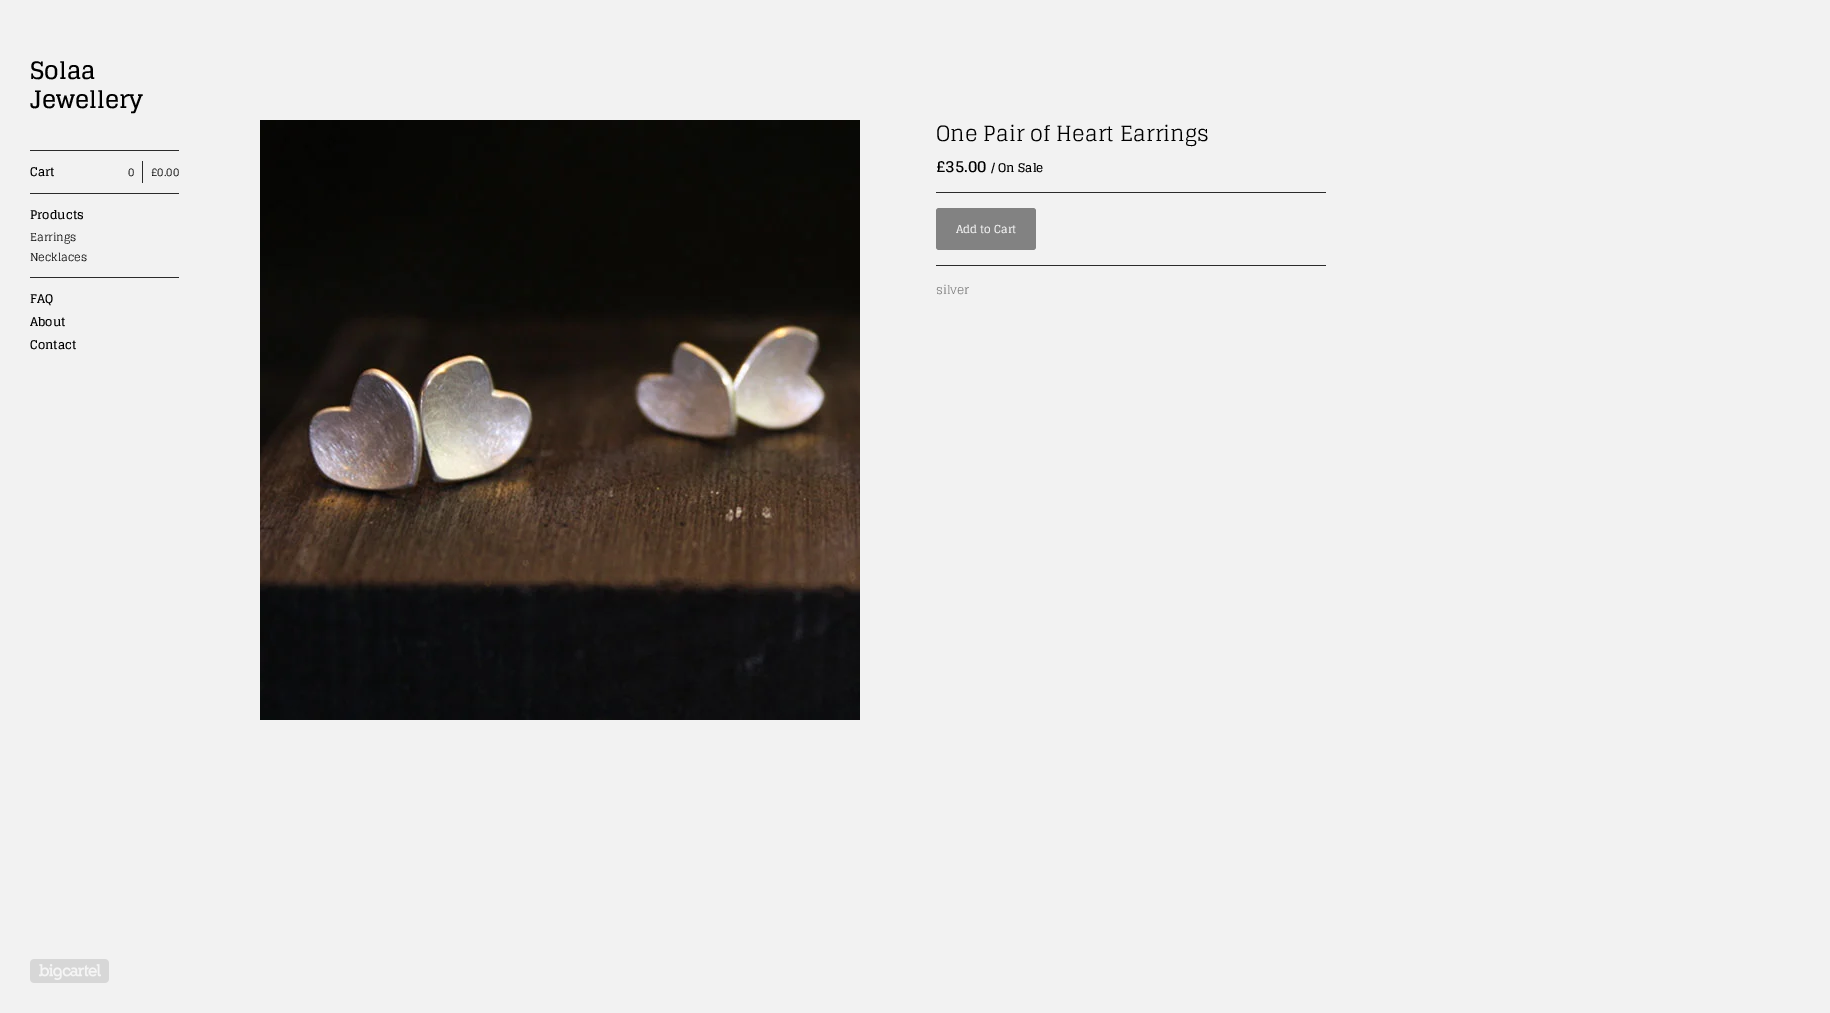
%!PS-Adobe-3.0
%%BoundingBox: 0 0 1830 1013
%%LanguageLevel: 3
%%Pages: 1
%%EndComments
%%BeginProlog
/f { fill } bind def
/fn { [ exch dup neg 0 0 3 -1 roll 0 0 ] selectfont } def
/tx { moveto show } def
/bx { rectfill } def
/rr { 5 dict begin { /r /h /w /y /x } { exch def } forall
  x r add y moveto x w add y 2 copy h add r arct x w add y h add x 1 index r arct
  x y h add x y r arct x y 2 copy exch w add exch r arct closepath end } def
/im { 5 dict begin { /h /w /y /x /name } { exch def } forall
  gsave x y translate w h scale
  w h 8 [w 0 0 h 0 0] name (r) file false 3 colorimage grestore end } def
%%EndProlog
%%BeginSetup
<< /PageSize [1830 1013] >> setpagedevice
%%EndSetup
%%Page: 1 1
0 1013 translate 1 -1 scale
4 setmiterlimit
0.949 setgray
0 0 1830 1013 bx
/Glegoo-Bold 24 fn
0 setgray
(Solaa) 30 79 tx
(Jewellery) 30 108 tx
0.169 setgray
30 150 149 1 bx
/Glegoo-Bold 12 fn
0 setgray
(Cart) 30 176 tx
/Glegoo-Regular 11 fn
(0) 128 176 tx
0.169 setgray
142 161 1 22 bx
0 setgray
(£0.00) 151 176 tx
0.169 setgray
30 193 149 1 bx
/Glegoo-Bold 12 fn
0 setgray
(Products) 30 219 tx
/Glegoo-Regular 11 fn
(Earrings) 30 241 tx
(Necklaces) 30 261 tx
0.169 setgray
30 277 149 1 bx
/Glegoo-Bold 12 fn
0 setgray
(FAQ) 30 303 tx
(About) 30 326 tx
(Contact) 30 349 tx
(image0.raw) 30 959 79 24 im
(image1.raw) 260 120 600 600 im
/Glegoo-Regular 21 fn
(One Pair of Heart Earrings) 936 141 tx
/Glegoo-Bold 16 fn
(£35.00) 936 172 tx
/Glegoo-Bold 12 fn
(/ On Sale) 991 172 tx
0.169 setgray
936 192 390 1 bx
0.51 setgray
936 208 100 42 3 rr f
/Glegoo-Bold 11 fn
0.949 setgray
(Add to Cart) 956 233 tx
0.169 setgray
936 265 390 1 bx
/Glegoo-Regular 12 fn
0.502 setgray
(silver) 936 294 tx
showpage
%%EOF
